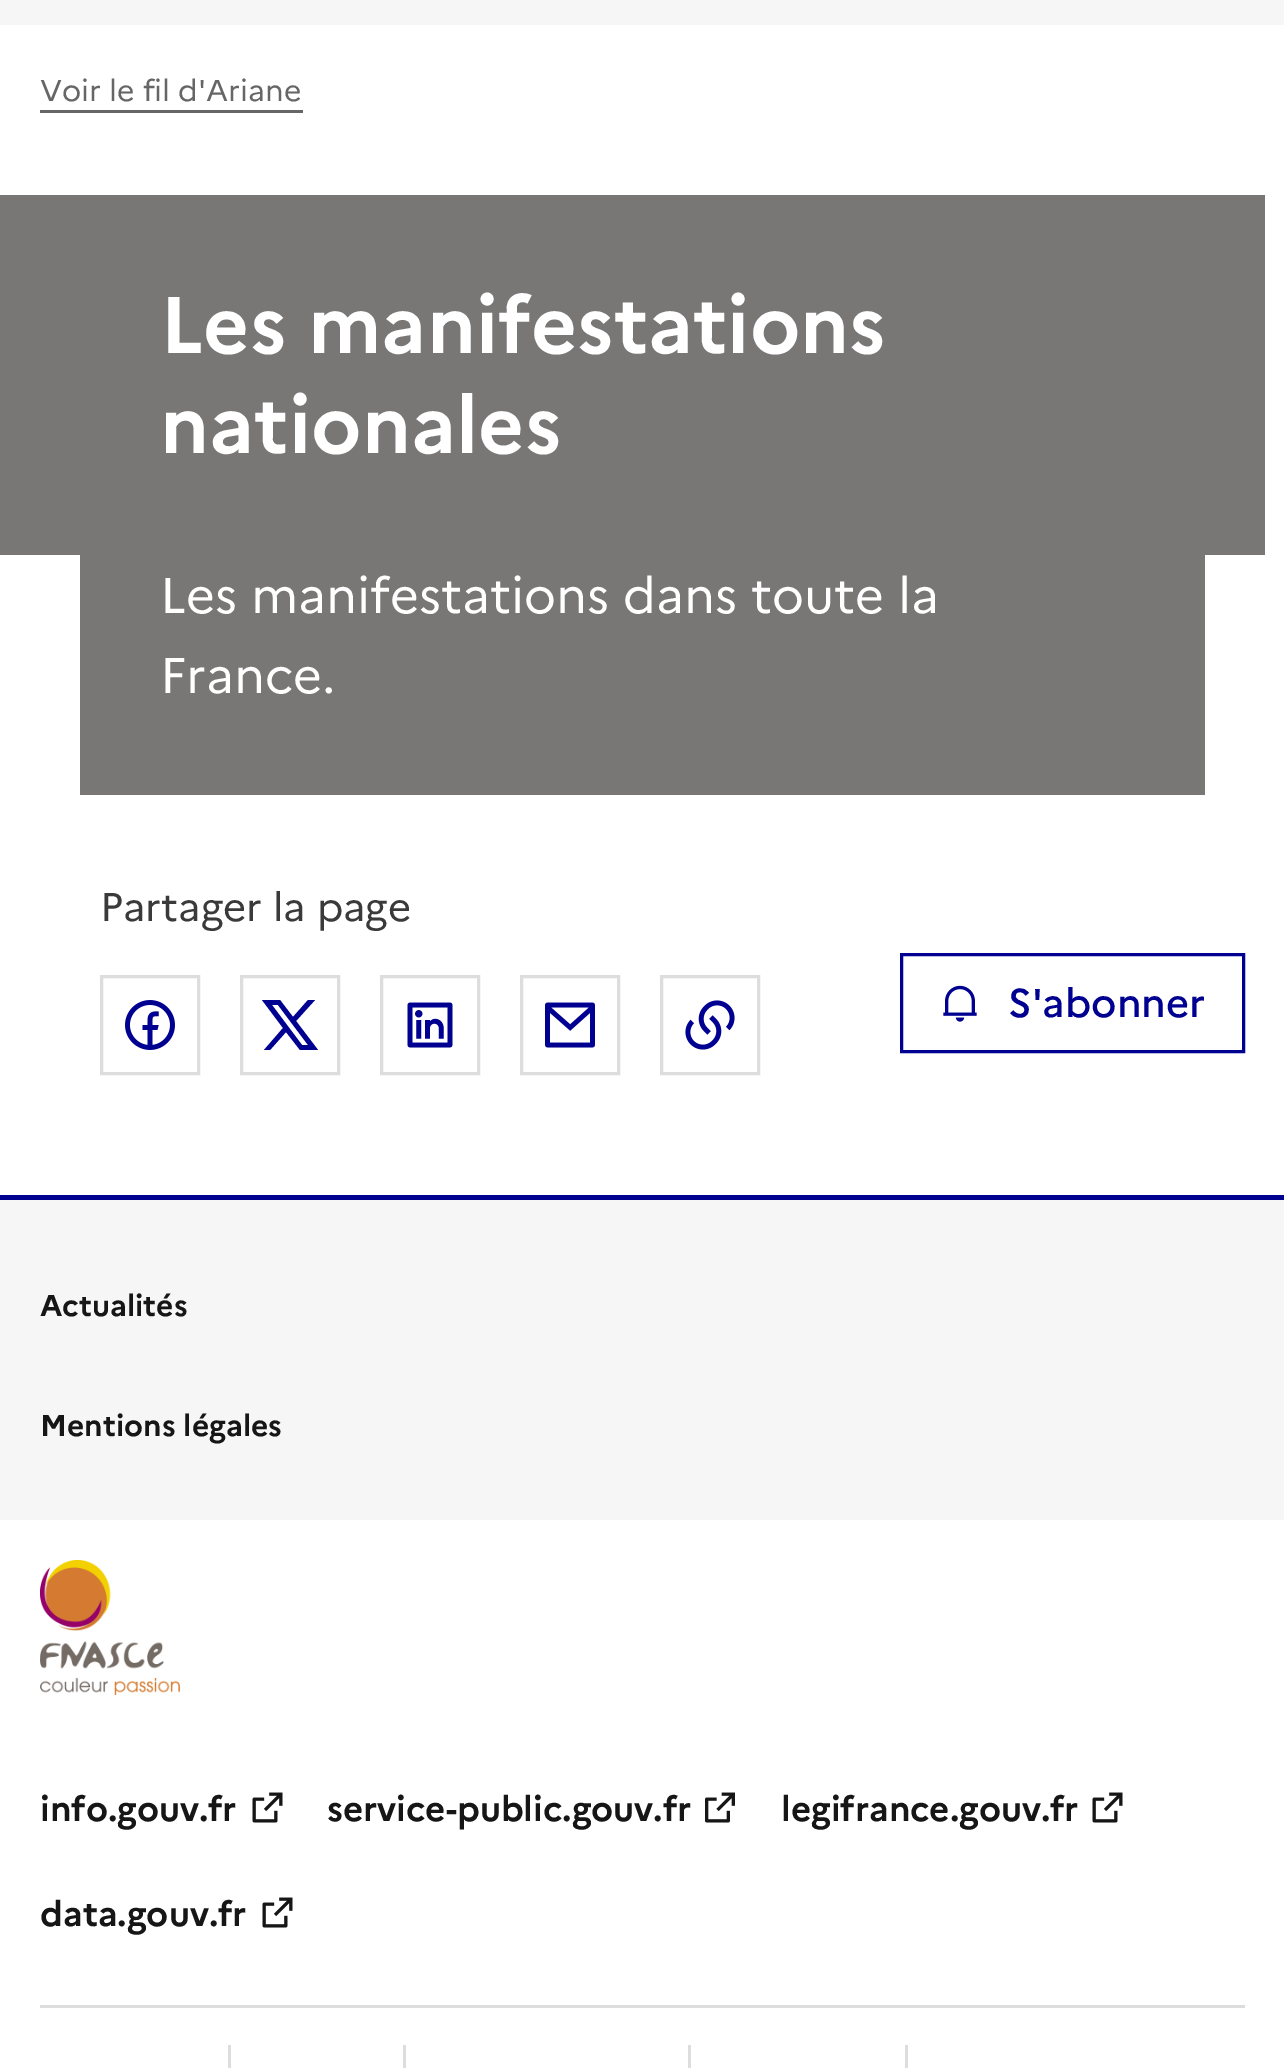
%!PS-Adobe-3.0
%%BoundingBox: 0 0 1284 2068
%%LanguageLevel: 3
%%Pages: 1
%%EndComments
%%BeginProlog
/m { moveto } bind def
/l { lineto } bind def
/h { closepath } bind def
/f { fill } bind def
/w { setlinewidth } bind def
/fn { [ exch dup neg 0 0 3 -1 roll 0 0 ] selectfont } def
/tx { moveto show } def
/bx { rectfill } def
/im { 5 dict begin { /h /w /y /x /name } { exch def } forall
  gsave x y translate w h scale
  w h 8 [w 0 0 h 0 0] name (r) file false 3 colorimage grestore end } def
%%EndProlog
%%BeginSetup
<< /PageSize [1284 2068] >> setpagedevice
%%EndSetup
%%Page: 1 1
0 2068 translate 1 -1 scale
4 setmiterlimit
1 setgray
0 0 1284 2068 bx
0.965 setgray
0 0 1284 25 bx
0.4 setgray
40 110 263 3 bx
/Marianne-Regular 30 fn
(Voir le fil d'Ariane) 40 101 tx
0.475 0.463 0.463 setrgbcolor
0 195 1265 360 bx
/Marianne-Bold 80 fn
1 setgray
(Les manifestations) 160 353 tx
(nationales) 160 453 tx
0.475 0.463 0.463 setrgbcolor
80 555 1125 240 bx
/Marianne-Regular 50 fn
1 setgray
(Les manifestations dans toute la) 160 613 tx
(France.) 160 693 tx
/Marianne-Regular 40 fn
0.227 setgray
(Partager la page) 100 921 tx
0.867 setgray
3 w
101.5 976.5 97 97 rectstroke
(image0.raw) 125 1000 50 50 im
241.5 976.5 97 97 rectstroke
0 0 0.569 setrgbcolor
280 1000 m 262 1000 l 283 1028 l 264 1050 l 270 1050 l 286 1032 l 300 1050 l 318 1050 l 296 1021 l 315 1000 l 308 1000 l 293 1017 l h 302 1045 m 272 1005 l 278 1005 l 308 1045 l h f
0.867 setgray
381.5 976.5 97 97 rectstroke
(image1.raw) 407 1002 46 46 im
521.5 976.5 97 97 rectstroke
(image2.raw) 545 1002 50 46 im
661.5 976.5 97 97 rectstroke
(image3.raw) 685 1000 50 50 im
0 0 0.569 setrgbcolor
901.5 954.5 342 97 rectstroke
(image4.raw) 943 985 34 37 im
/Marianne-Medium 40 fn
(S'abonner) 1008 1017 tx
0 1195 1284 5 bx
0.965 setgray
0 1200 1284 320 bx
/Marianne-Bold 30 fn
0.086 setgray
(Actualités) 40 1316 tx
(Mentions légales) 40 1436 tx
(image5.raw) 40 1560 140 135 im
/Marianne-Bold 35 fn
(info.gouv.fr) 40 1821 tx
(image6.raw) 252 1792 31 31 im
(service-public.gouv.fr) 327 1821 tx
(image7.raw) 705 1792 30 31 im
(legifrance.gouv.fr) 781 1821 tx
(image6.raw) 1092 1792 31 31 im
(data.gouv.fr) 40 1926 tx
(image6.raw) 262 1897 31 31 im
0.867 setgray
40 2005 1205 3 bx
228 2045 3 23 bx
403 2045 3 23 bx
688 2045 3 23 bx
905 2045 3 23 bx
showpage
%%EOF
